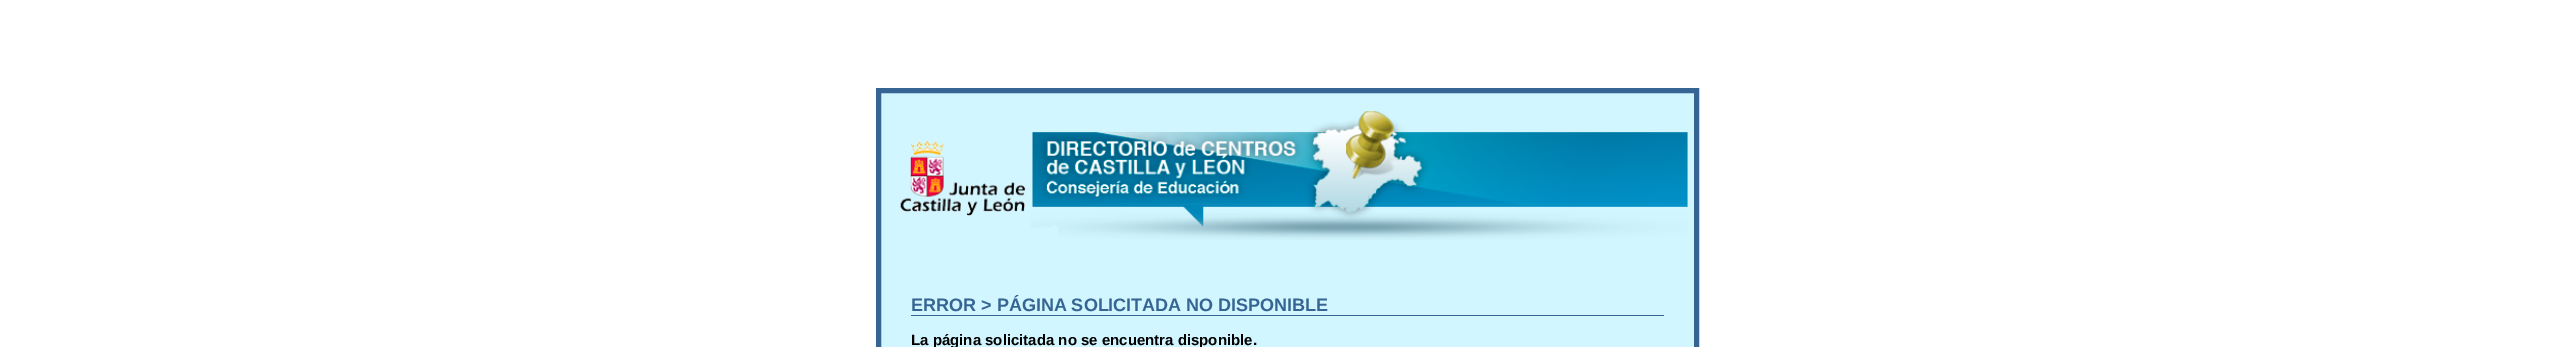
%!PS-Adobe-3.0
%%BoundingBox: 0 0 2573 347
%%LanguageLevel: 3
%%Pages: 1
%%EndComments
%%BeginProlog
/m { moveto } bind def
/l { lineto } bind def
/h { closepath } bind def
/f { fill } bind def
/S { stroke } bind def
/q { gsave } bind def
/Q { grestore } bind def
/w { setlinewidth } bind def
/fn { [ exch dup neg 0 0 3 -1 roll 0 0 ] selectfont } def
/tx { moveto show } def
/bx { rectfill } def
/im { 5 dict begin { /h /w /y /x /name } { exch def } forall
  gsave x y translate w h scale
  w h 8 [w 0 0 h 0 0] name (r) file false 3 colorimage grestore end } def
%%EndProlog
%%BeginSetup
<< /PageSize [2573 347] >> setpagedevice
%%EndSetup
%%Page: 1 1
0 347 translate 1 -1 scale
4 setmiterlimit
1 setgray
0 0 2573 347 bx
0.82 0.965 1 setrgbcolor
878.5 90.5 m 1696.5 90.5 l 1696.5 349.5 l 878.5 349.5 l h q f Q
0.212 0.396 0.576 setrgbcolor
5 w
S
(image0.raw) 900 140 126 76 im
(image1.raw) 1031 111 657 129 im
911 315 753 1 bx
/LiberationSans-Bold 18 fn
(ERROR > PÁGINA SOLICITADA NO DISPONIBLE) 911 311 tx
/LiberationSans-Bold 15 fn
0 setgray
(La página solicitada no se encuentra disponible.) 911 345 tx
showpage
%%EOF
